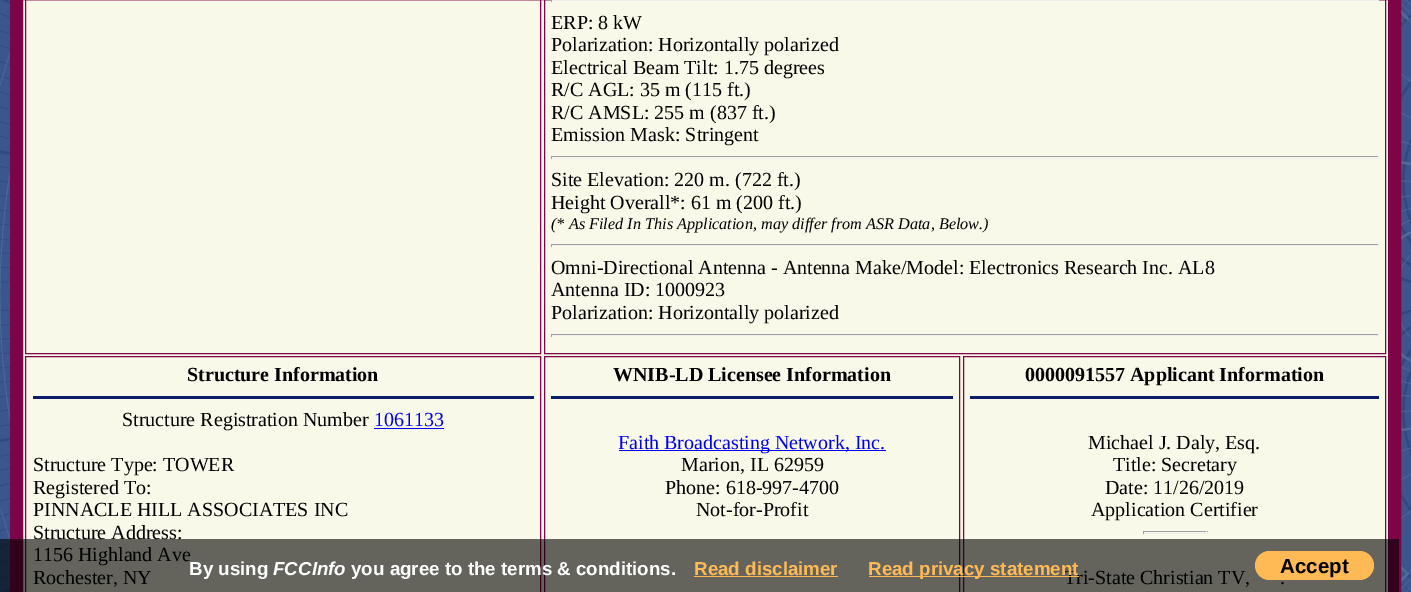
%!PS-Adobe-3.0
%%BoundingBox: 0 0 1411 592
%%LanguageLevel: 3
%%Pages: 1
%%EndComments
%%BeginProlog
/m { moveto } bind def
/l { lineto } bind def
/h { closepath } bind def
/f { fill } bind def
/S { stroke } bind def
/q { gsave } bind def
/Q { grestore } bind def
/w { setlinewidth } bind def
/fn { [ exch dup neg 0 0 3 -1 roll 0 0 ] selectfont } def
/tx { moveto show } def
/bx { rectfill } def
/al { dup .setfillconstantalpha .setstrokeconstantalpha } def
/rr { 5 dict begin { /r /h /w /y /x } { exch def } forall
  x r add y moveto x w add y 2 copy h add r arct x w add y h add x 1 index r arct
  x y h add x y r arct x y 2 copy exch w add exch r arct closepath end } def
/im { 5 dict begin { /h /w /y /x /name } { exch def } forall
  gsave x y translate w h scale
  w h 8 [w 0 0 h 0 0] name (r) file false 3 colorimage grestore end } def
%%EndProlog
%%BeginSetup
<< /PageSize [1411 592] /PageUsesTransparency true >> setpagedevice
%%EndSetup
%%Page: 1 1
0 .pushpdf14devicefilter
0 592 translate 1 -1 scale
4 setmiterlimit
1 setgray
0 0 1411 592 bx
(image0.raw) 0 0 1411 592 im
0.976 0.976 0.914 setrgbcolor
16.5 -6.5 m 1394.5 -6.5 l 1394.5 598.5 l 16.5 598.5 l h q f Q
0.49 0.016 0.278 setrgbcolor
13 w
S
1 w
25.5 -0.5 515 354 rectstroke
544.5 -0.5 841 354 rectstroke
0.933 setgray
1378 0 1 2 bx
551 0 828 1 bx
0.624 setgray
551 0 1 2 bx
/LiberationSerif-Regular 20 fn
0 setgray
(ERP: 8 kW) 551 29 tx
(Polarization: Horizontally polarized) 551 51 tx
(Electrical Beam Tilt: 1.75 degrees) 551 74 tx
(R/C AGL: 35 m \(115 ft.\)) 551 96 tx
(R/C AMSL: 255 m \(837 ft.\)) 551 119 tx
(Emission Mask: Stringent) 551 141 tx
0.624 setgray
551 156 828 1 bx
0.933 setgray
1378 156 1 3 bx
551 158 828 1 bx
0.624 setgray
551 156 1 3 bx
0 setgray
(Site Elevation: 220 m. \(722 ft.\)) 551 186 tx
(Height Overall*: 61 m \(200 ft.\)) 551 209 tx
/LiberationSerif-Italic 16.25 fn
(\(* As Filed In This Application, may differ from ASR Data, Below.\)) 551 229 tx
0.624 setgray
551 244 828 1 bx
0.933 setgray
1378 244 1 3 bx
551 245 828 1 bx
0.624 setgray
551 244 1 3 bx
/LiberationSerif-Regular 20 fn
0 setgray
(Omni-Directional Antenna - Antenna Make/Model: Electronics Research Inc. AL8) 551 274 tx
(Antenna ID: 1000923) 551 296 tx
(Polarization: Horizontally polarized) 551 319 tx
0.624 setgray
551 334 828 1 bx
0.933 setgray
1378 334 1 3 bx
551 335 828 1 bx
0.624 setgray
551 334 1 3 bx
0.49 0.016 0.278 setrgbcolor
25.5 356.5 515 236 rectstroke
/LiberationSerif-Bold 20 fn
0 setgray
(Structure Information) 187 381 tx
0.047 0.114 0.42 setrgbcolor
33 396 501 3 bx
/LiberationSerif-Regular 20 fn
0 setgray
(Structure Registration Number) 122 426 tx
0 0 0.933 setrgbcolor
(1061133) 374 426 tx
374 428 70 1 bx
0 setgray
(Structure Type: TOWER) 33 471 tx
(Registered To:) 33 494 tx
(PINNACLE HILL ASSOCIATES INC) 33 516 tx
(Structure Address:) 33 539 tx
(1156 Highland Ave) 33 561 tx
(Rochester, NY) 33 584 tx
0.49 0.016 0.278 setrgbcolor
544.5 356.5 415 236 rectstroke
/LiberationSerif-Bold 20 fn
0 setgray
(WNIB-LD Licensee Information) 613 381 tx
0.047 0.114 0.42 setrgbcolor
551 396 402 3 bx
0 0 0.933 setrgbcolor
619 450 267 1 bx
/LiberationSerif-Regular 20 fn
(Faith Broadcasting Network, Inc.) 618 449 tx
0 setgray
(Marion, IL 62959) 681 471 tx
(Phone: 618-997-4700) 665 494 tx
(Not-for-Profit) 696 516 tx
0.49 0.016 0.278 setrgbcolor
963.5 356.5 422 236 rectstroke
/LiberationSerif-Bold 20 fn
0 setgray
(0000091557 Applicant Information) 1025 381 tx
0.047 0.114 0.42 setrgbcolor
970 396 409 3 bx
/LiberationSerif-Regular 20 fn
0 setgray
(Michael J. Daly, Esq.) 1088 449 tx
(Title: Secretary) 1113 471 tx
(Date: 11/26/2019) 1105 494 tx
(Application Certifier) 1091 516 tx
0.624 setgray
1143 531 65 1 bx
0.933 setgray
1206 531 1 3 bx
1143 533 65 1 bx
0.624 setgray
1143 531 1 3 bx
0 setgray
(Tri-State Christian TV,) 1064 584 tx
(.) 1280 584 tx
0.6 al
0 539 1399 53 bx
/LiberationSans-Bold 18.75 fn
1 al
1 setgray
(By using) 189 575 tx
/LiberationSans-BoldItalic 18.75 fn
(FCCInfo) 273 575 tx
/LiberationSans-Bold 18.75 fn
(you agree to the terms & conditions.) 351 575 tx
1 0.729 0.333 setrgbcolor
(Read disclaimer) 694 575 tx
694 576 144 1 bx
869 576 210 1 bx
(Read privacy statement) 868 575 tx
1255 551 119 29 14.5 rr f
/LiberationSans-Bold 20.5 fn
0 setgray
(Accept) 1280 573 tx
.poppdf14devicefilter showpage
%%EOF
